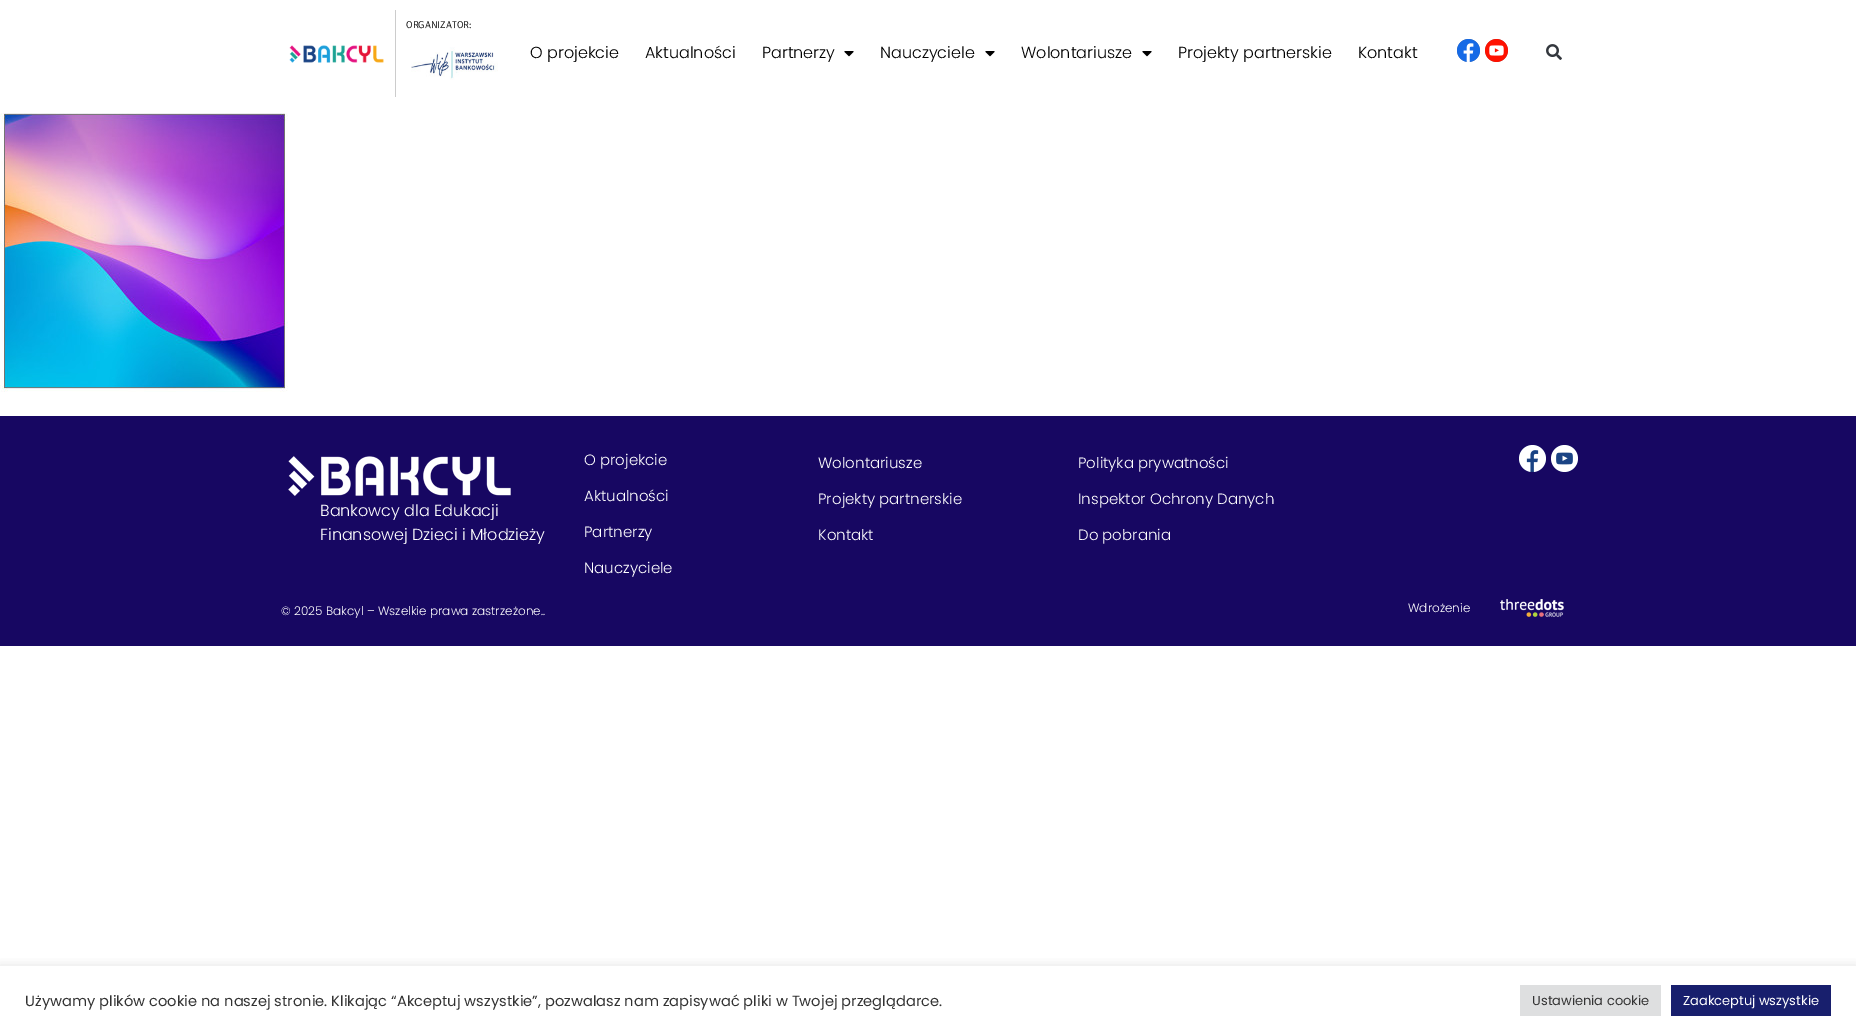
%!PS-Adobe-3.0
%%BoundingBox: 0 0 1856 1035
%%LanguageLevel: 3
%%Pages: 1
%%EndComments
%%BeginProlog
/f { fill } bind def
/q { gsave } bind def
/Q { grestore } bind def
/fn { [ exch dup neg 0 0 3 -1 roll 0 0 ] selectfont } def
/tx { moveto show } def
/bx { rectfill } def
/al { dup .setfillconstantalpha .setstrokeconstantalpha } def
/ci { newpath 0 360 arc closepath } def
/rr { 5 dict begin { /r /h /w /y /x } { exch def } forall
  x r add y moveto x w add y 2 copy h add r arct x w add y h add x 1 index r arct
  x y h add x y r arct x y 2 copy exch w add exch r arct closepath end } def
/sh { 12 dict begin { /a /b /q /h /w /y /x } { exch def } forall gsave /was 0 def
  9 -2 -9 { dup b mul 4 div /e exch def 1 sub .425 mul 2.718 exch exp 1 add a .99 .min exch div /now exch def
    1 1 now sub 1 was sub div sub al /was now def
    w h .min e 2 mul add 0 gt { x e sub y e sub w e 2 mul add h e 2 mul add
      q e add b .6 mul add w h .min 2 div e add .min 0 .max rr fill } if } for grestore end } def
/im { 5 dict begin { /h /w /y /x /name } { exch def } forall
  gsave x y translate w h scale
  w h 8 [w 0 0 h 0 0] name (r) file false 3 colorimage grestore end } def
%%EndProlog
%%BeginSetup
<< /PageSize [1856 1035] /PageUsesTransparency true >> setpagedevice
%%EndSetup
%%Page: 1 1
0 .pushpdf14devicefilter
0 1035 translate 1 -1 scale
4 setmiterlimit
1 setgray
0 0 1856 1035 bx
0.8 setgray
395 10 1 87 bx
/Signika-Light 10 fn
0 setgray
(ORGANIZATOR:) 406 28 tx
(image0.raw) 411 47 87 33 im
(image1.raw) 289 45 95 18 im
/Poppins-Light 16 fn
(O projekcie) 530 58 tx
(Aktualności) 645 58 tx
(Partnerzy) 762 58 tx
(image2.raw) 844 51 10 6 im
(Nauczyciele) 880 58 tx
(image2.raw) 985 51 10 6 im
(Wolontariusze) 1021 58 tx
(image2.raw) 1142 51 10 6 im
(Projekty partnerskie) 1178 58 tx
(Kontakt) 1358 58 tx
(image3.raw) 1457 39 23 23 im
(image4.raw) 1485 39 23 23 im
(image5.raw) 1546 44 16 16 im
(image6.raw) 0 113 288 279 im
0.09 0.027 0.384 setrgbcolor
0 416 1856 230 bx
(image7.raw) 288 456 223 40 im
1 setgray
(Bankowcy dla Edukacji) 320 516 tx
(Finansowej Dzieci i Młodzieży) 320 540 tx
/Poppins-Light 15 fn
(O projekcie) 584 465 tx
(Aktualności) 584 501 tx
(Partnerzy) 584 537 tx
(Nauczyciele) 584 573 tx
(Wolontariusze) 818 468 tx
(Projekty partnerskie) 818 504 tx
(Kontakt) 818 540 tx
(Polityka prywatności) 1078 468 tx
(Inspektor Ochrony Danych) 1078 504 tx
(Do pobrania) 1078 540 tx
0.102 0.263 0.518 setrgbcolor
1532.5 458.5 13.5 ci f
(image8.raw) 1519 445 27 27 im
1564.5 458.5 13.5 ci f
(image9.raw) 1551 445 27 27 im
/Poppins-Light 12 fn
1 setgray
(© 2025 Bakcyl – Wszelkie prawa zastrzeżone..) 281 615 tx
(Wdrożenie) 1408 612 tx
(image10.raw) 1500 599 64 18 im
q
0 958 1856 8 rectclip
0.675 0.671 0.671 setrgbcolor
0 965 1856 69 0 5 0.3 sh
Q
/Poppins-Regular 14.67 fn
0.2 setgray
(Używamy plików cookie na naszej stronie. Klikając “Akceptuj wszystkie”, pozwalasz nam zapisywać pliki w Twojej przeglądarce.) 25 1006 tx
0.871 0.875 0.878 setrgbcolor
1520 985 141 31 bx
/Poppins-Regular 13 fn
0.2 setgray
(Ustawienia cookie) 1532 1005 tx
0.094 0.122 0.427 setrgbcolor
1671 985 160 31 bx
1 setgray
(Zaakceptuj wszystkie) 1683 1005 tx
.poppdf14devicefilter showpage
%%EOF
